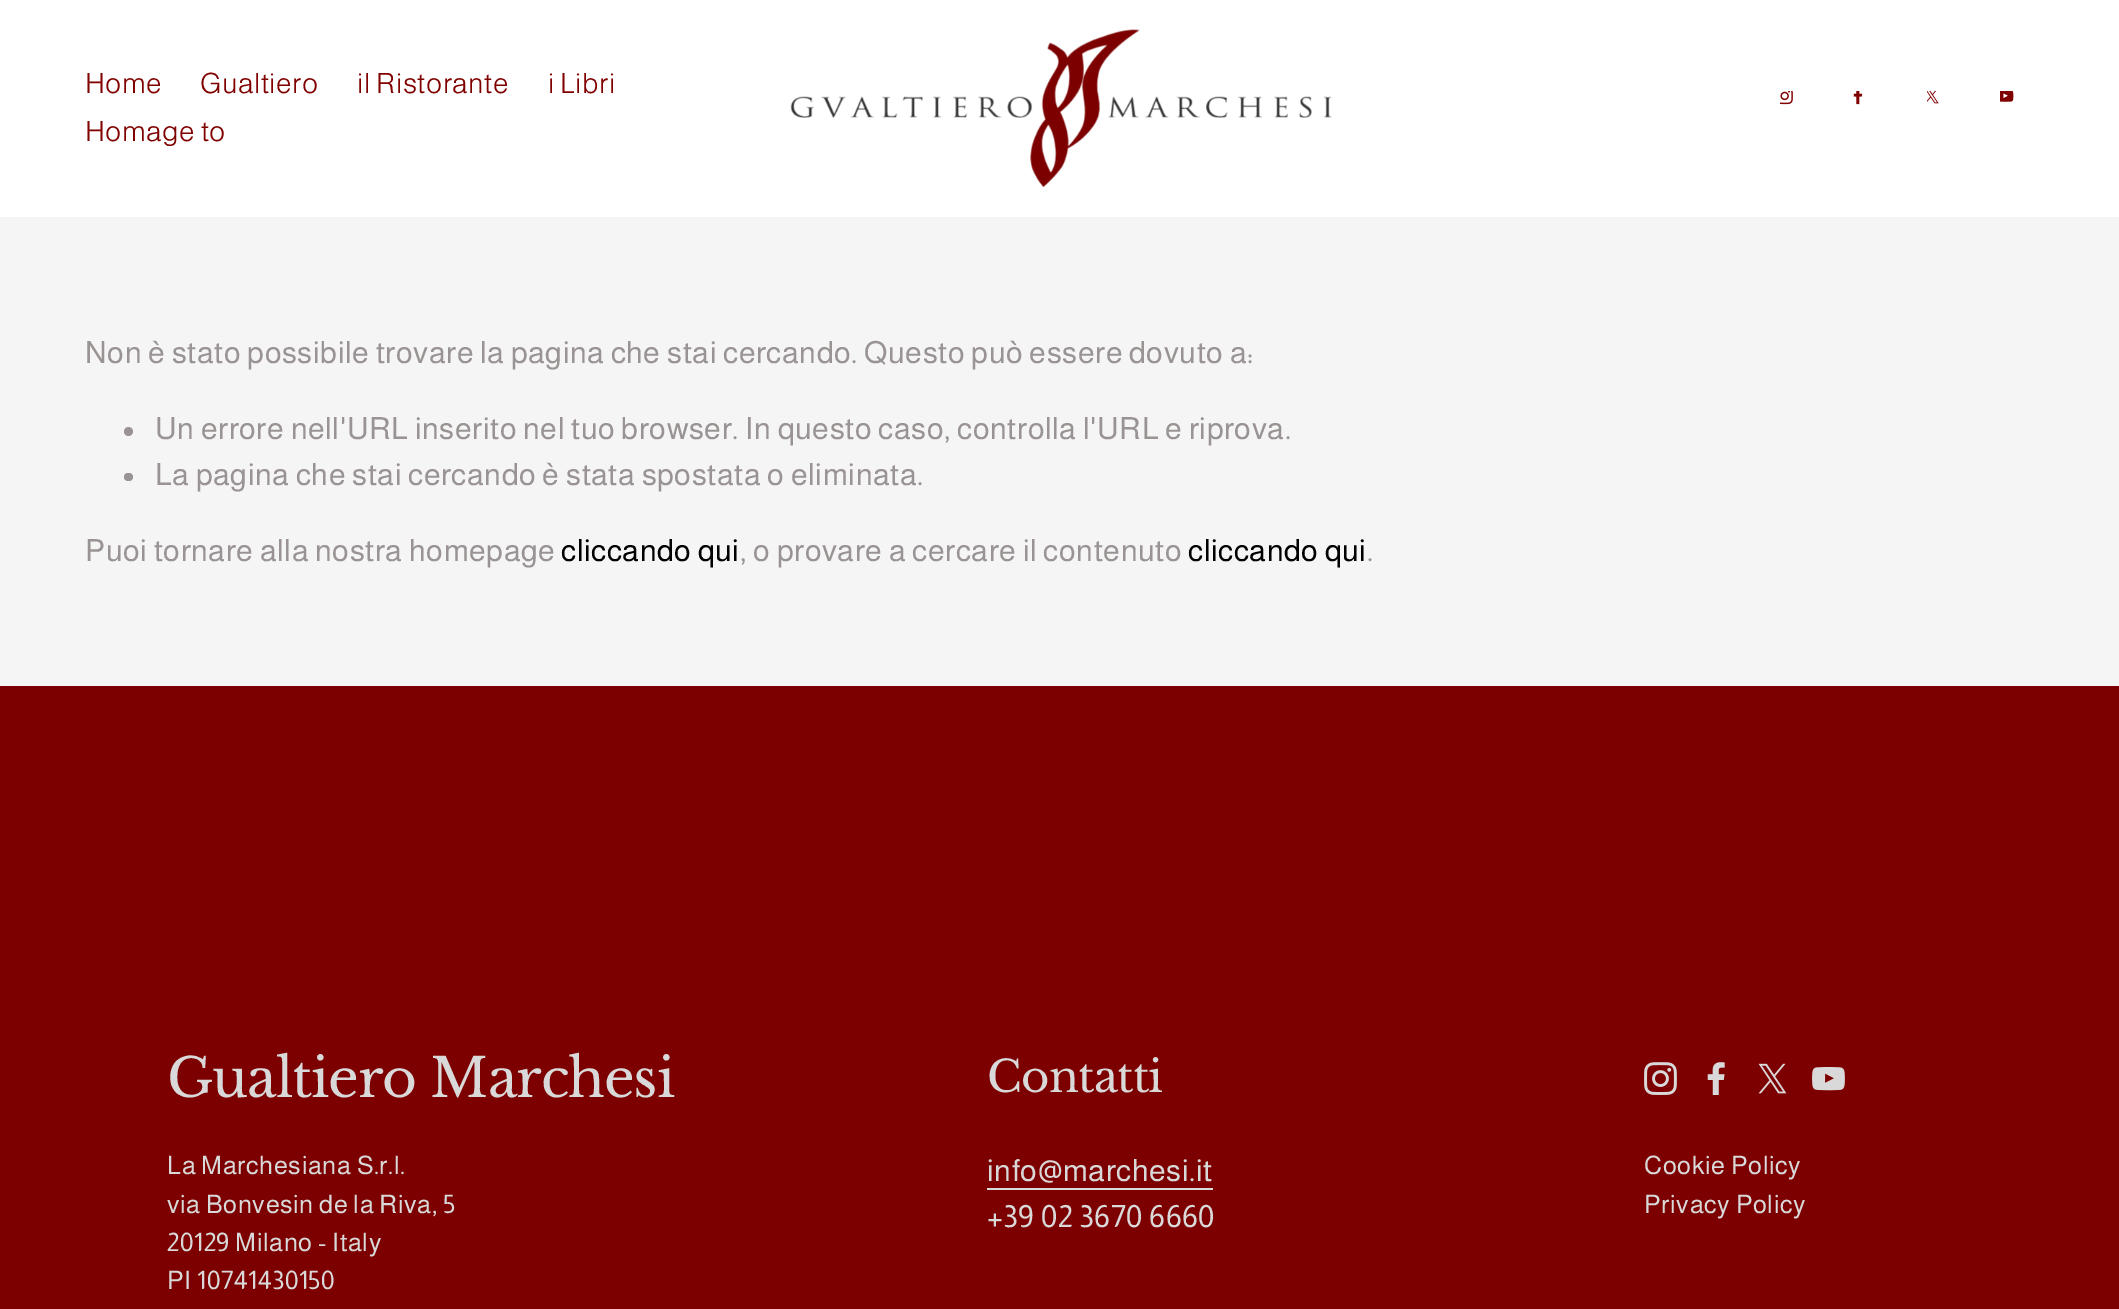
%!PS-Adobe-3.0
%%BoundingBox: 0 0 2119 1309
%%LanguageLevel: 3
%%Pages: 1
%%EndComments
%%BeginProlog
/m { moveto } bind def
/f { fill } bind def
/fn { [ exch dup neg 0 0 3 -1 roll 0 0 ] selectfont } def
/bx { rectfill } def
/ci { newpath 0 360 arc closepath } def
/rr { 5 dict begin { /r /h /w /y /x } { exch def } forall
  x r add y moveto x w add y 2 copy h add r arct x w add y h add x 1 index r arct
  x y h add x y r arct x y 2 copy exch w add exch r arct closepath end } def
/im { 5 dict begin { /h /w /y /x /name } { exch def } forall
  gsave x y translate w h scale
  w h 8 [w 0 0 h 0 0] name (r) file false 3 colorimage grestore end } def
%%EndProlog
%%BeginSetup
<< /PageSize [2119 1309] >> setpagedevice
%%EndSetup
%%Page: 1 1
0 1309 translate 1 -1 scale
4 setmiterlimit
0.961 setgray
0 0 2119 1309 bx
1 setgray
0 0 2119 217 bx
/Almarai-Light 28 fn
0.502 0 0 setrgbcolor
85 93 m 0.5 0 (Home) ashow
200 93 m 0.5 0 (Gualtiero) ashow
357 93 m 0.5 0 (il Ristorante) ashow
548 93 m 0.5 0 (i Libri) ashow
85 141 m 0.5 0 (Homage to) ashow
(image0.raw) 790 29 542 158 im
(image1.raw) 1780 91 13 14 im
(image2.raw) 1853 91 10 14 im
(image3.raw) 1927 91 12 13 im
(image4.raw) 2000 91 14 11 im
/Almarai-Regular 30.55 fn
0.604 0.576 0.576 setrgbcolor
85 363 m 0.6 0 (Non è stato possibile trovare la pagina che stai cercando. Questo può essere dovuto a:) ashow
128.5 431.5 4.5 ci f
155 439 m 0.6 0 (Un errore nell'URL inserito nel tuo browser. In questo caso, controlla l'URL e riprova.) ashow
124 473 9 8 4 rr f
155 485 m 0.6 0 (La pagina che stai cercando è stata spostata o eliminata.) ashow
85 561 m 0.6 0 (Puoi tornare alla nostra homepage) ashow
0 setgray
561 561 m 0.6 0 (cliccando qui) ashow
0.604 0.576 0.576 setrgbcolor
740 561 m 0.6 0 (, o provare a cercare il contenuto) ashow
0 setgray
1188 561 m 0.6 0 (cliccando qui) ashow
0.604 0.576 0.576 setrgbcolor
1367 561 m 0.6 0 (.) ashow
0.49 0 0 setrgbcolor
0 686 2119 623 bx
/LibreBaskerville-Regular 53.5 fn
0.851 setgray
167 1097 m -1.1 0 (Gualtiero Marchesi) ashow
/LibreBaskerville-Regular 43.5 fn
987 1092 m -0.75 0 (Contatti) ashow
(image5.raw) 1644 1062 33 33 im
(image6.raw) 1707 1062 18 33 im
(image7.raw) 1758 1063 29 31 im
(image8.raw) 1812 1067 33 24 im
/Almarai-Regular 25.5 fn
167 1174 m 0.6 0 (La Marchesiana S.r.l.) ashow
167 1213 m 0.6 0 (via Bonvesin de la Riva, 5) ashow
167 1251 m 0.6 0 (20129 Milano - Italy) ashow
167 1289 m 0.6 0 (PI 10741430150) ashow
/Almarai-Regular 30.55 fn
987 1181 m 0.6 0 (info@marchesi.it) ashow
987 1188 226 2 bx
987 1227 m 0.6 0 (+39 02 3670 6660) ashow
/Almarai-Regular 25.5 fn
1644 1174 m 0.6 0 (Cookie Policy) ashow
1644 1213 m 0.6 0 (Privacy Policy) ashow
showpage
%%EOF
